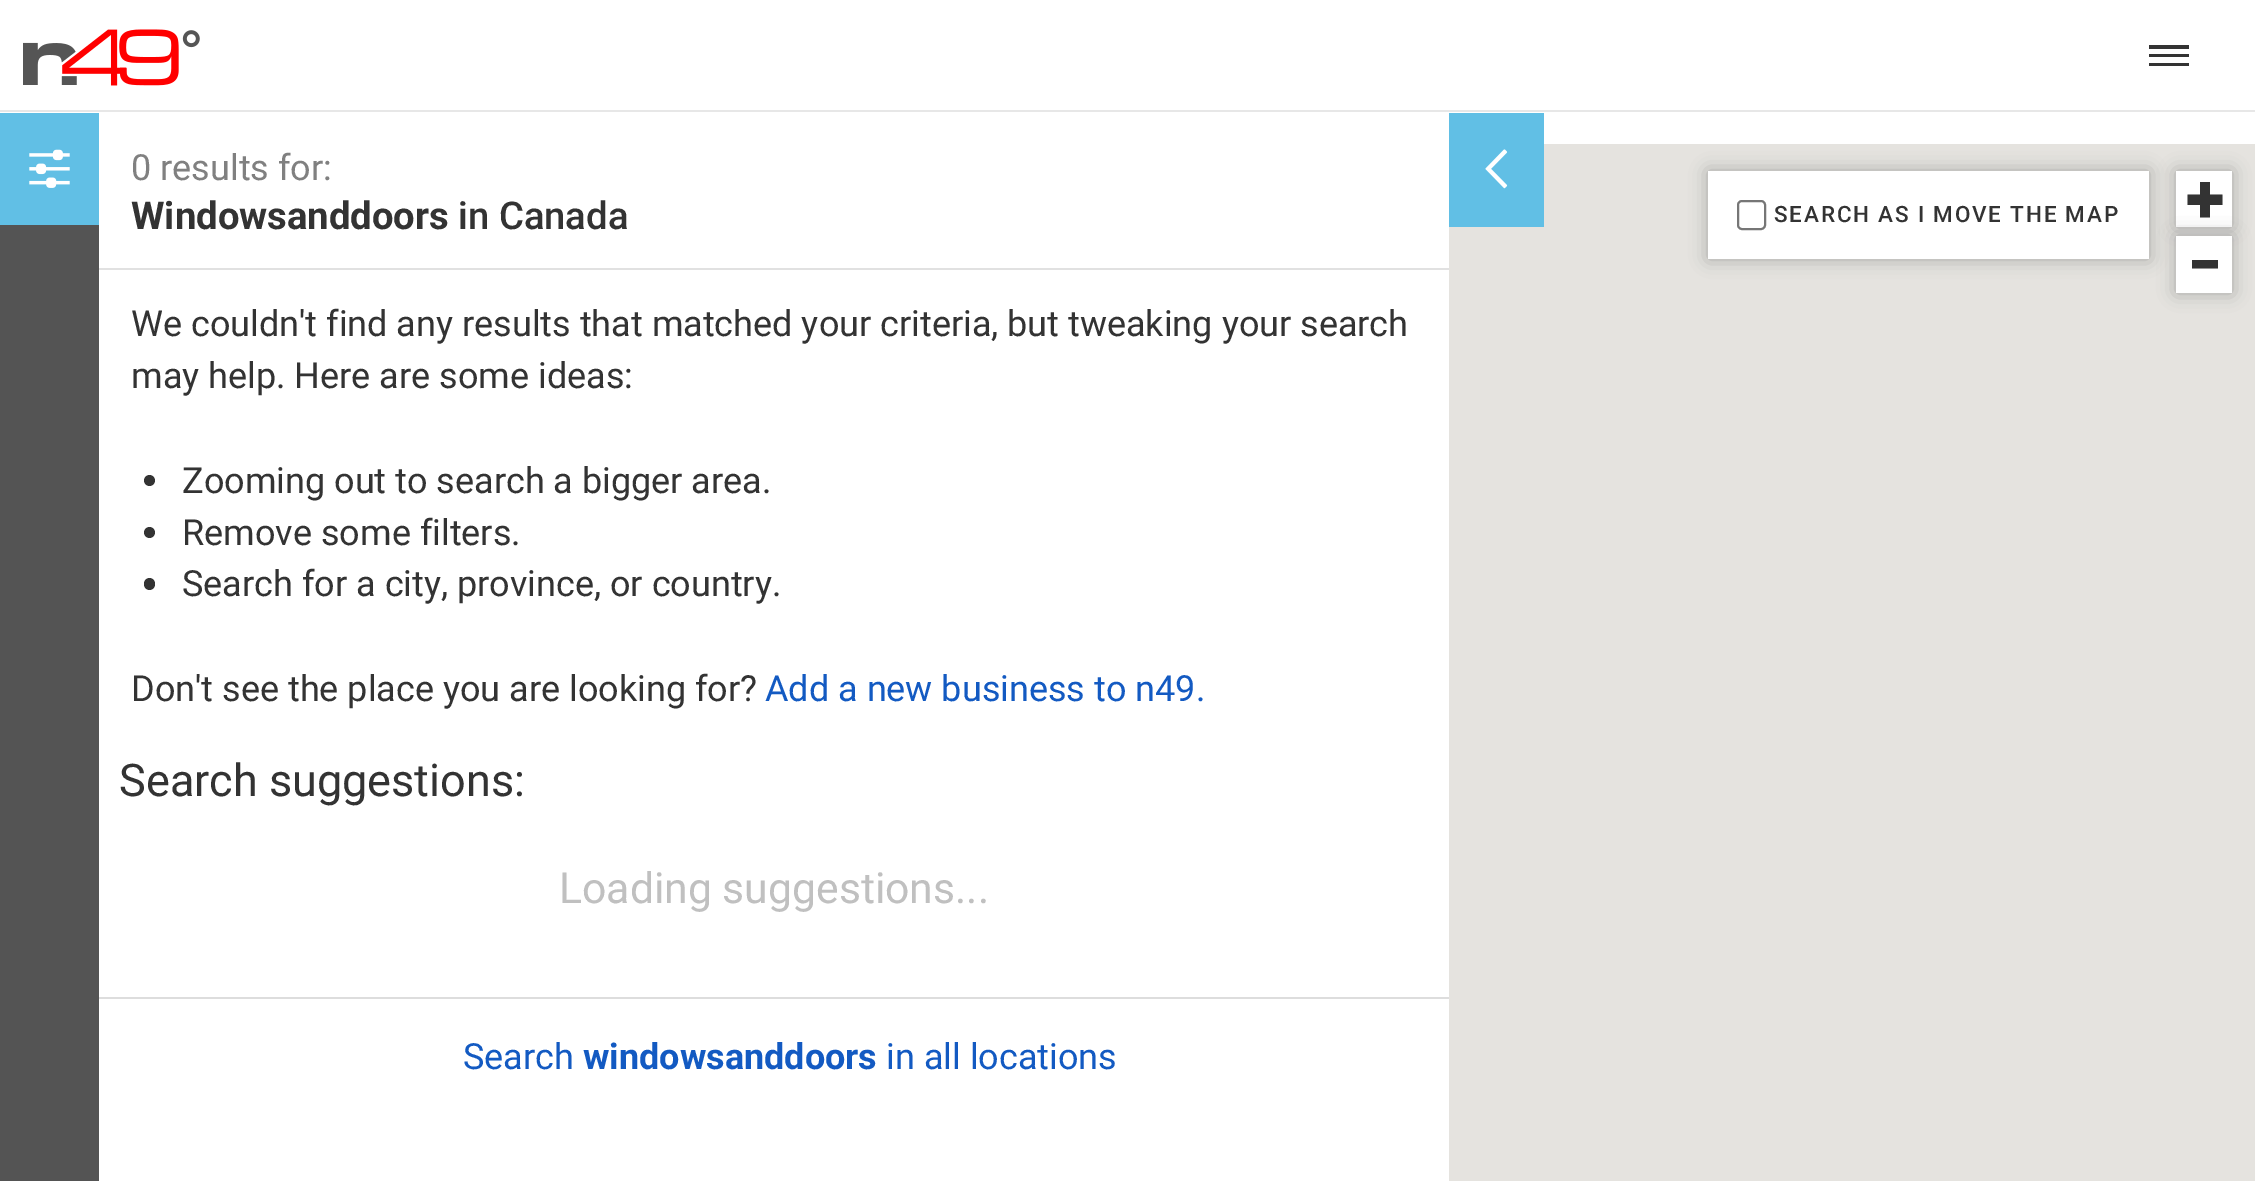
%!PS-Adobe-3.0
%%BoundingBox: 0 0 2255 1181
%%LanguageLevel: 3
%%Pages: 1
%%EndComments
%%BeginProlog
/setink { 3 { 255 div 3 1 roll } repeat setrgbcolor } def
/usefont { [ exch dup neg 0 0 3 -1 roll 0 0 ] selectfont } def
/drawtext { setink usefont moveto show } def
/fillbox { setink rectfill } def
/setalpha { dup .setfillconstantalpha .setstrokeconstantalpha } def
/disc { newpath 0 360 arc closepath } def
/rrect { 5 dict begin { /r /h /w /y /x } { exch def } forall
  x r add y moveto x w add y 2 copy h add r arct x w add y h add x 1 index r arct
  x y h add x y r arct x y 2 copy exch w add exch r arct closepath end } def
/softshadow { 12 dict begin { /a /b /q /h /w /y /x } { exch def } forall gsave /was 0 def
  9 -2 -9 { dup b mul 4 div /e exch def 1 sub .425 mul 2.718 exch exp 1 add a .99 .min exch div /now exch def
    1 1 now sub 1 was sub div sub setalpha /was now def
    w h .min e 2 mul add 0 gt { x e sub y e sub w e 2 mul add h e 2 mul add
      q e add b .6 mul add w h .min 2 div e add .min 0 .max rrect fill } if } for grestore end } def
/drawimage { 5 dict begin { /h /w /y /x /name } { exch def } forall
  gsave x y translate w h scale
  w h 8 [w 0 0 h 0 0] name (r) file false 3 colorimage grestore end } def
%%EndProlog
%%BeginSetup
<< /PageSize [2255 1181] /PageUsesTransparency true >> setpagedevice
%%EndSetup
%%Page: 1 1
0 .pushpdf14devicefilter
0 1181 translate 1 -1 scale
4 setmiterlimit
0 0 2255 1181 255 255 255 fillbox
0 110 2255 2 231 231 231 fillbox
(assets/img1.rgb) 23 29 177 57 drawimage
51 51 51 setink
2149 45 moveto 2149 49 lineto 2189 49 lineto 2189 45 lineto closepath 2149 57 moveto 2189 57 lineto 2189 54 lineto 2149 54 lineto closepath 2149 66 moveto 2189 66 lineto 2189 63 lineto 2149 63 lineto closepath fill
0 225 99 956 84 84 84 fillbox
0 113 99 112 97 191 229 fillbox
(assets/img2.rgb) 29 149 41 39 drawimage
99 268 1350 2 225 225 225 fillbox
(0 results for:) 131 180 /Roboto-Regular 36 128 128 128 drawtext
(Windowsanddoors) 131 229 /Roboto-Bold 38.25 51 51 51 drawtext
(in Canada) 458 229 /Roboto-Medium 38.25 51 51 51 drawtext
(We couldn't find any results that matched your criteria, but tweaking your search) 131 336 /Roboto-Regular 36 51 51 51 drawtext
(may help. Here are some ideas:) 131 388 /Roboto-Regular 36 51 51 51 drawtext
149.5 480.5 5.5 disc fill
(Zooming out to search a bigger area.) 182 493 /Roboto-Regular 36 51 51 51 drawtext
149.5 532.5 5.5 disc fill
(Remove some filters.) 182 545 /Roboto-Regular 36 51 51 51 drawtext
144 578 11 12 5.5 rrect fill
(Search for a city, province, or country.) 182 596 /Roboto-Regular 36 51 51 51 drawtext
(Don't see the place you are looking for?) 131 701 /Roboto-Regular 36 51 51 51 drawtext
(Add a new business to n49.) 765 701 /Roboto-Regular 36 19 90 194 drawtext
(Search suggestions:) 119 796 /Roboto-Regular 45 51 51 51 drawtext
(Loading suggestions...) 559 903 /Roboto-Regular 42.75 192 192 192 drawtext
99 997 1350 2 221 221 221 fillbox
(Search) 463 1069 /Roboto-Regular 36 19 90 194 drawtext
(windowsanddoors) 583 1069 /Roboto-Bold 36 19 90 194 drawtext
(in all locations) 886 1069 /Roboto-Regular 36 19 90 194 drawtext
1449 144 806 1037 229 227 223 fillbox
1449 113 95 114 97 191 229 fillbox
(assets/img3.rgb) 1485 149 23 40 drawimage
163 163 163 setink
1708 171 441 88 0 9 1 softshadow
1708 171 441 88 255 255 255 fillbox
163 163 163 setink
2176 171 56 56 0 9 1 softshadow
2176 171 56 56 255 255 255 fillbox
163 163 163 setink
2176 236 56 57 0 9 1 softshadow
51 51 51 setink
2222.5 205 moveto 2210 205 lineto 2210 217.5 lineto 2200 217.5 lineto 2200 205 lineto 2187.5 205 lineto 2187.5 194.5 lineto 2200 194.5 lineto 2200 182 lineto 2210 182 lineto 2210 194.5 lineto 2222.5 194.5 lineto closepath fill
2176 236 56 57 255 255 255 fillbox
51 51 51 setink
2200 268.5 moveto 2192 268.5 lineto 2192 260 lineto 2218 260 lineto 2218 268.5 lineto closepath fill
118 118 118 setink
2 setlinewidth
1738 201 27 28 4 rrect stroke
/Roboto-Medium 22.5 usefont
51 51 51 setink
1774 222 moveto 1.8 0 (SEARCH AS I MOVE THE MAP) ashow
.poppdf14devicefilter showpage
%%EOF
